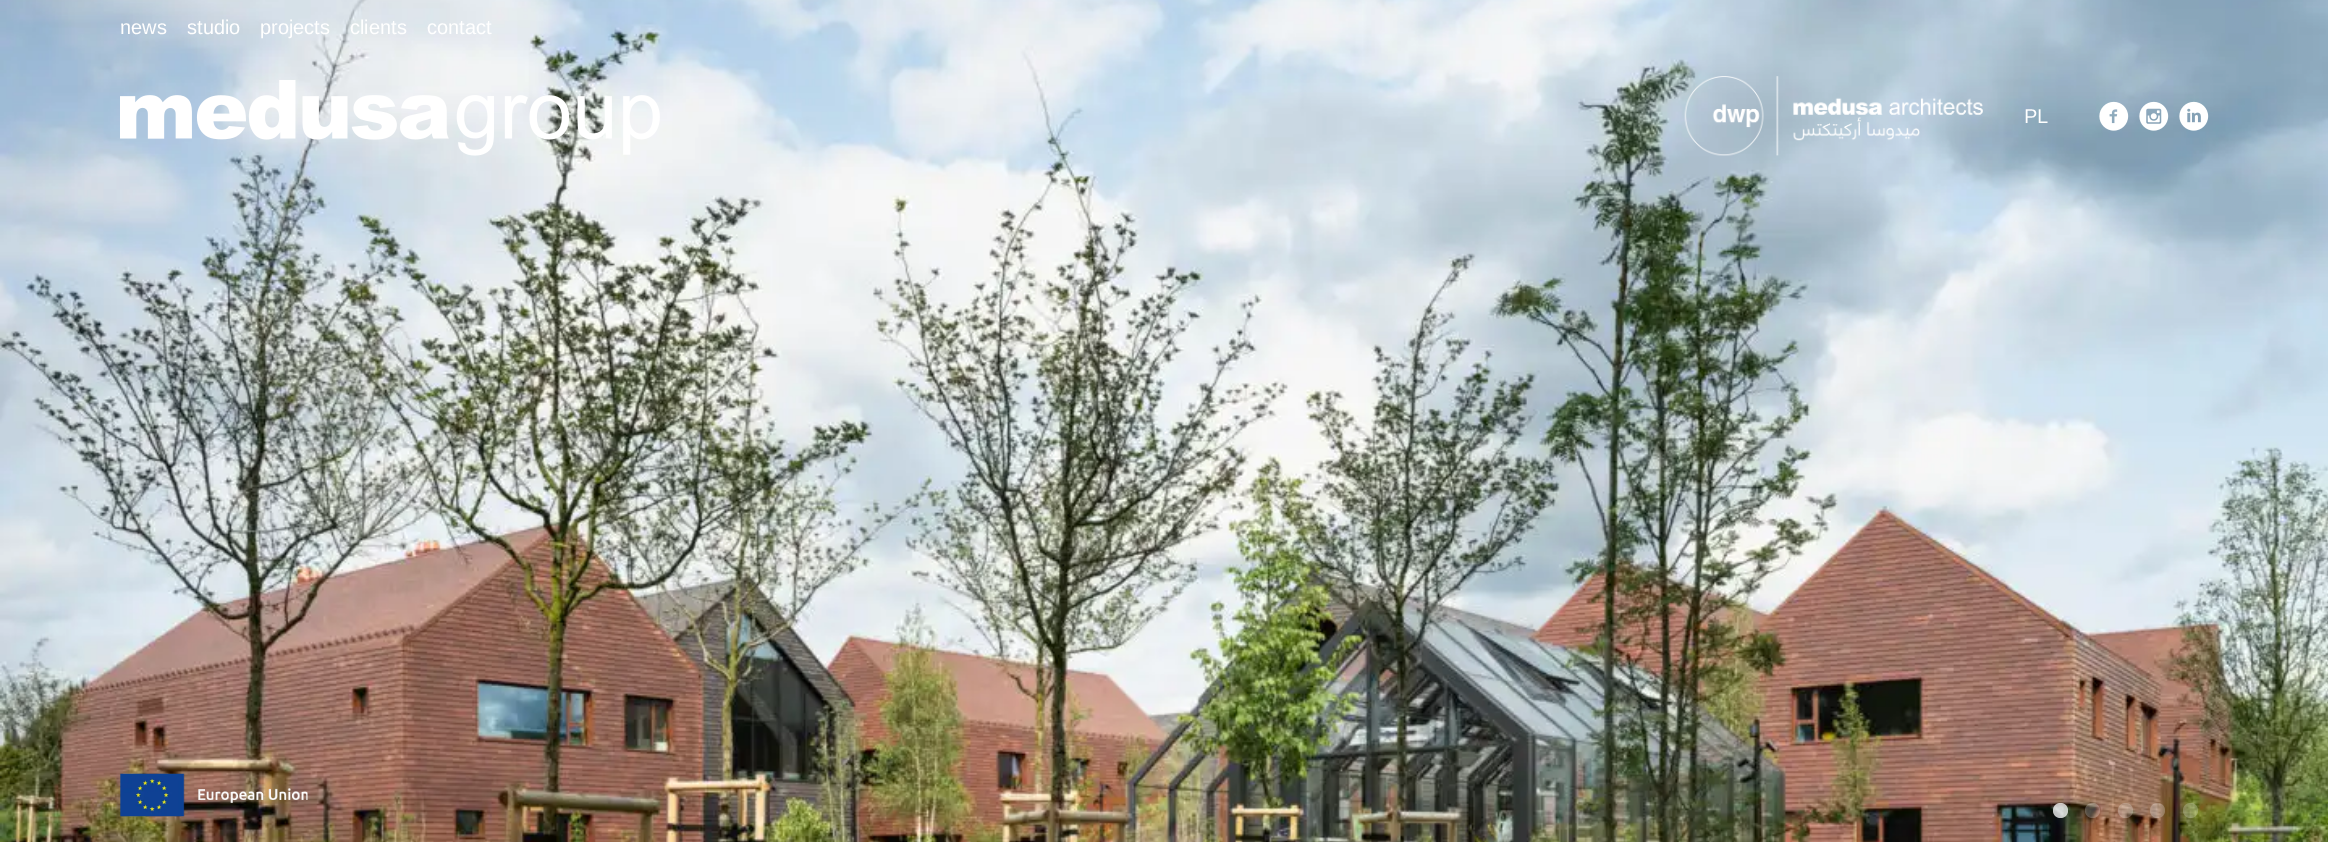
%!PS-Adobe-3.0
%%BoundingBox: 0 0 2328 842
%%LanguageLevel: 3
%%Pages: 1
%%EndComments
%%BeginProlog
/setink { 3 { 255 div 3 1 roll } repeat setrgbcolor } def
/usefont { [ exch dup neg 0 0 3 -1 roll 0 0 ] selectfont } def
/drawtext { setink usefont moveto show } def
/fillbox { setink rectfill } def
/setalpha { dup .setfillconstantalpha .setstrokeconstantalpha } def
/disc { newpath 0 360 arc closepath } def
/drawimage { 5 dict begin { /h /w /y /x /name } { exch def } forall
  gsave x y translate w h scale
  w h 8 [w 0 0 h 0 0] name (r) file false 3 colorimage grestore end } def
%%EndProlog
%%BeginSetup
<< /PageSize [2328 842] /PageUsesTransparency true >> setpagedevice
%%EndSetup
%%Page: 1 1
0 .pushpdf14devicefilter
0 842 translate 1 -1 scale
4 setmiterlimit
0 0 2328 842 255 255 255 fillbox
(assets/img1.rgb) 0 0 2328 842 drawimage
0.75 setalpha
2060.5 810.5 7.5 disc fill
0.25 setalpha
2092.5 810.5 7.5 disc fill
2125.5 810.5 7.5 disc fill
2157.5 810.5 7.5 disc fill
2190.5 810.5 7.5 disc fill
1 setalpha
(news) 120 34 /LiberationSans-Regular 20 255 255 255 drawtext
(studio) 187 34 /LiberationSans-Regular 20 255 255 255 drawtext
(projects) 260 34 /LiberationSans-Regular 20 255 255 255 drawtext
(clients) 350 34 /LiberationSans-Regular 20 255 255 255 drawtext
(contact) 427 34 /LiberationSans-Regular 20 255 255 255 drawtext
(assets/img2.rgb) 120 80 540 76 drawimage
(assets/img3.rgb) 1684 76 299 80 drawimage
(PL) 2024 123 /LiberationSans-Regular 20 255 255 255 drawtext
(assets/img4.rgb) 2099 101 30 30 drawimage
(assets/img5.rgb) 2139 101 30 30 drawimage
(assets/img6.rgb) 2179 101 30 30 drawimage
(assets/img7.rgb) 120 773 188 44 drawimage
.poppdf14devicefilter showpage
%%EOF
